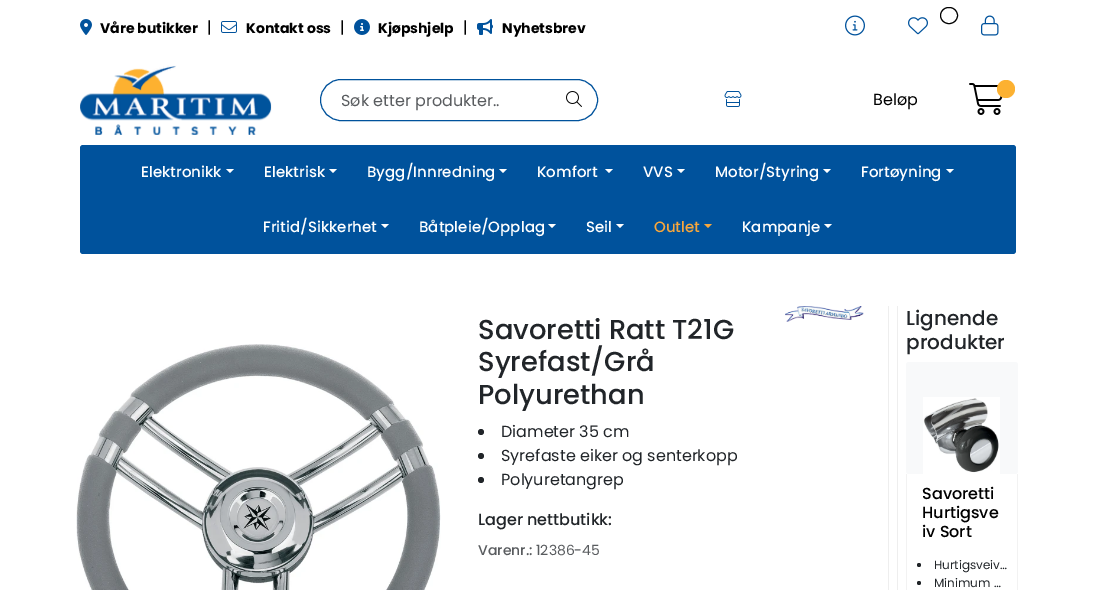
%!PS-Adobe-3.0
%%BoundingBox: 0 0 1095 590
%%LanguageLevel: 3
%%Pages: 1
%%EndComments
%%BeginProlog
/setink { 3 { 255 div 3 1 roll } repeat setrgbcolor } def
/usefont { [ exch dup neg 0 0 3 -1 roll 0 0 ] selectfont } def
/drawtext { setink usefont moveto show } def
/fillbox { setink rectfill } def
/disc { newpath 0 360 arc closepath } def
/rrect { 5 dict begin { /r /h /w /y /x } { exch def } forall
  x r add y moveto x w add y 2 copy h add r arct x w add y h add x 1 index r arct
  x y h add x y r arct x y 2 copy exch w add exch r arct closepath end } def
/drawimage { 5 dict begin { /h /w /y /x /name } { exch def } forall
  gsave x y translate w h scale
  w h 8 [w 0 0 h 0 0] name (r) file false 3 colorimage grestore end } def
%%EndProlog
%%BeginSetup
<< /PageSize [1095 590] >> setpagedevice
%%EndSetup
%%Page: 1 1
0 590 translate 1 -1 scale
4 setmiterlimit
0 0 1095 590 255 255 255 fillbox
(assets/img1.rgb) 80 19 12 16 drawimage
(Våre butikker) 100 33 /Poppins-Bold 14 0 0 0 drawtext
(|) 207 33 /Poppins-Regular 16 0 0 0 drawtext
(assets/img2.rgb) 221 21 16 12 drawimage
(Kontakt oss) 246 33 /Poppins-Bold 14 0 0 0 drawtext
(|) 340 33 /Poppins-Regular 16 0 0 0 drawtext
(assets/img3.rgb) 354 19 16 16 drawimage
(Kjøpshjelp) 378 33 /Poppins-Bold 14 0 0 0 drawtext
(|) 463 33 /Poppins-Regular 16 0 0 0 drawtext
(assets/img4.rgb) 477 19 16 16 drawimage
(Nyhetsbrev) 502 33 /Poppins-Bold 14 0 0 0 drawtext
(assets/img5.rgb) 845 15 20 21 drawimage
(assets/img6.rgb) 908 17 20 18 drawimage
940.5 7.5 17 16 8 rrect stroke
(assets/img7.rgb) 981 15 18 21 drawimage
(assets/img8.rgb) 80 65 192 70 drawimage
0 82 156 setink
320.5 79.5 277 41 20.5 rrect stroke
(Søk etter produkter..) 341 106 /Poppins-Regular 16 89 92 95 drawtext
(assets/img9.rgb) 566 91 16 16 drawimage
(assets/img10.rgb) 724 91 18 16 drawimage
(Beløp) 873 105 /Poppins-Regular 16 0 0 0 drawtext
(assets/img11.rgb) 969 83 34 32 drawimage
252 177 49 setink
1006 89 9 disc fill
0 82 156 setink
80 145 936 109 3 rrect fill
(Elektronikk) 141 177 /Poppins-Medium 15 255 255 255 drawtext
226 169 moveto 234 169 lineto 230 173 lineto closepath fill
(Elektrisk) 264 177 /Poppins-Medium 15 255 255 255 drawtext
329 169 moveto 337 169 lineto 333 173 lineto closepath fill
(Bygg/Innredning) 367 177 /Poppins-Medium 15 255 255 255 drawtext
499 169 moveto 507 169 lineto 503 173 lineto closepath fill
(Komfort) 537 177 /Poppins-Medium 15 255 255 255 drawtext
605 169 moveto 613 169 lineto 609 173 lineto closepath fill
(VVS) 643 177 /Poppins-Medium 15 255 255 255 drawtext
677 169 moveto 685 169 lineto 681 173 lineto closepath fill
(Motor/Styring) 715 177 /Poppins-Medium 15 255 255 255 drawtext
823 169 moveto 831 169 lineto 827 173 lineto closepath fill
(Fortøyning) 861 177 /Poppins-Medium 15 255 255 255 drawtext
946 169 moveto 954 169 lineto 950 173 lineto closepath fill
(Fritid/Sikkerhet) 263 232 /Poppins-Medium 15 255 255 255 drawtext
381 224 moveto 389 224 lineto 385 228 lineto closepath fill
(Båtpleie/Opplag) 419 232 /Poppins-Medium 15 255 255 255 drawtext
548 224 moveto 556 224 lineto 552 228 lineto closepath fill
(Seil) 586 232 /Poppins-Medium 15 255 255 255 drawtext
616 224 moveto 624 224 lineto 620 228 lineto closepath fill
(Outlet) 654 232 /Poppins-Medium 15 248 167 60 drawtext
704 224 moveto 712 224 lineto 708 228 lineto closepath fill
(Kampanje) 742 232 /Poppins-Medium 15 255 255 255 drawtext
824 224 moveto 832 224 lineto 828 228 lineto closepath fill
(assets/img12.rgb) 76 344 365 246 drawimage
(assets/img13.rgb) 785 306 79 16 drawimage
(Savoretti Ratt T21G) 478 339 /Poppins-Medium 27.4 33 37 41 drawtext
(Syrefast/Grå) 478 371 /Poppins-Medium 27.4 33 37 41 drawtext
(Polyurethan) 478 404 /Poppins-Medium 27.4 33 37 41 drawtext
481 432 3 disc fill
(Diameter 35 cm) 501 437 /Poppins-Regular 16 33 37 41 drawtext
481 456 3 disc fill
(Syrefaste eiker og senterkopp) 501 461 /Poppins-Regular 16 33 37 41 drawtext
481 480 3 disc fill
(Polyuretangrep) 501 485 /Poppins-Regular 16 33 37 41 drawtext
(Lager nettbutikk:) 478 525 /Poppins-Medium 16 33 37 41 drawtext
(Varenr.:) 478 555 /Poppins-Medium 14 89 92 95 drawtext
(12386-45) 536 555 /Poppins-Regular 14 89 92 95 drawtext
888 306 1 284 238 238 238 fillbox
897 306 1 284 238 238 238 fillbox
(Lignende) 906 325 /Poppins-Medium 20 33 37 41 drawtext
(produkter) 906 349 /Poppins-Medium 20 33 37 41 drawtext
248 249 250 setink
906 362 112 112 3 rrect fill
(assets/img14.rgb) 923 397 77 77 drawimage
242 242 242 setink
1018 474 moveto 1018 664 lineto 1017 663 lineto 1017 474 lineto closepath fill
906 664 moveto 906 474 lineto 907 474 lineto 907 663 lineto closepath fill
(Savoretti) 922 499 /Poppins-Medium 16 0 0 0 drawtext
(Hurtigsve) 922 518 /Poppins-Medium 16 0 0 0 drawtext
(iv Sort) 922 537 /Poppins-Medium 16 0 0 0 drawtext
33 37 41 setink
919 565 2 disc fill
(Hurtigsveiv…) 934 569 /Poppins-Regular 12 33 37 41 drawtext
919 583 2 disc fill
(Minimum …) 934 587 /Poppins-Regular 12 33 37 41 drawtext
showpage
%%EOF
